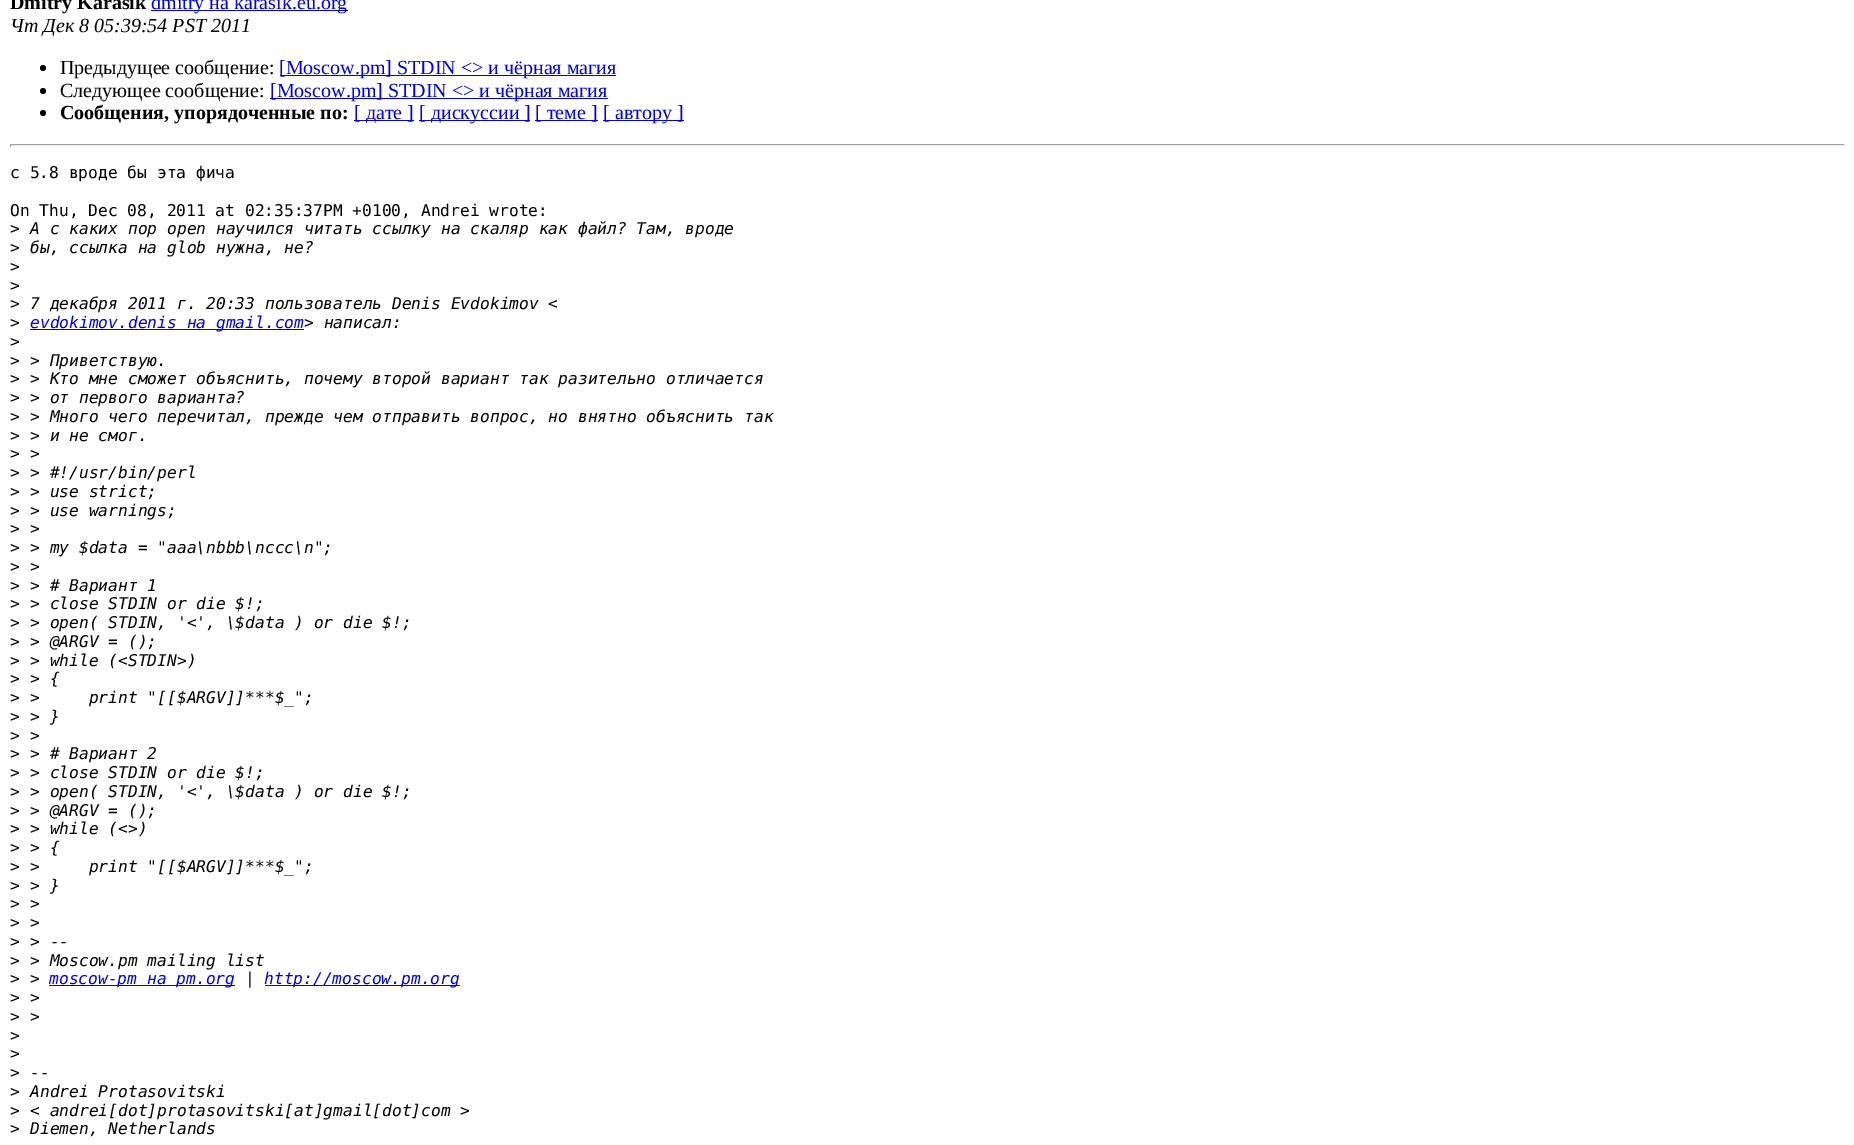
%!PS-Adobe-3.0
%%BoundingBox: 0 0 1854 1145
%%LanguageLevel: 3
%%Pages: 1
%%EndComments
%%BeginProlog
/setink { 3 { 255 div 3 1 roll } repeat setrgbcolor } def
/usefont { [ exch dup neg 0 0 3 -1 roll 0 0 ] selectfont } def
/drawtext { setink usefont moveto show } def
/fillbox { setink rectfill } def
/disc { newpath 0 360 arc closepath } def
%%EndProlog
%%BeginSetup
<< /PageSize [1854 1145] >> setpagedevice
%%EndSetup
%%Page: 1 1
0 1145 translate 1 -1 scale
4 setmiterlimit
0 0 1854 1145 255 255 255 fillbox
(Dmitry Karasik) 10 9 /LiberationSerif-Bold 20 0 0 0 drawtext
151 10 197 1 0 0 238 fillbox
(dmitry на karasik.eu.org) 151 9 /LiberationSerif-Regular 20 0 0 238 drawtext
(Чт Дек 8 05:39:54 PST 2011) 10 32 /LiberationSerif-Italic 20 0 0 0 drawtext
43 68 3 disc fill
(Предыдущее сообщение:) 60 74 /LiberationSerif-Regular 20 0 0 0 drawtext
280 75 336 1 0 0 238 fillbox
([Moscow.pm] STDIN <> и чёрная магия) 279 74 /LiberationSerif-Regular 20 0 0 238 drawtext
0 0 0 setink
43 91 3 disc fill
(Следующее сообщение:) 60 97 /LiberationSerif-Regular 20 0 0 0 drawtext
270 98 338 1 0 0 238 fillbox
([Moscow.pm] STDIN <> и чёрная магия) 270 97 /LiberationSerif-Regular 20 0 0 238 drawtext
0 0 0 setink
43 113 3 disc fill
(Сообщения, упорядоченные по:) 60 119 /LiberationSerif-Bold 20 0 0 0 drawtext
354 120 60 1 0 0 238 fillbox
([ дате ]) 354 119 /LiberationSerif-Regular 20 0 0 238 drawtext
419 120 111 1 0 0 238 fillbox
([ дискуссии ]) 419 119 /LiberationSerif-Regular 20 0 0 238 drawtext
535 120 63 1 0 0 238 fillbox
([ теме ]) 535 119 /LiberationSerif-Regular 20 0 0 238 drawtext
603 120 81 1 0 0 238 fillbox
([ автору ]) 603 119 /LiberationSerif-Regular 20 0 0 238 drawtext
10 144 1835 1 159 159 159 fillbox
1844 144 1 3 238 238 238 fillbox
10 145 1835 1 238 238 238 fillbox
10 144 1 3 159 159 159 fillbox
(с 5.8 вроде бы эта фича) 10 178 /DejaVuSansMono-Regular 16.25 0 0 0 drawtext
(On Thu, Dec 08, 2011 at 02:35:37PM +0100, Andrei wrote:) 10 216 /DejaVuSansMono-Regular 16.25 0 0 0 drawtext
(>) 10 234 /DejaVuSansMono-Regular 16.25 0 0 0 drawtext
(А с каких пор open научился читать ссылку на скаляр как файл? Там, вроде) 30 234 /DejaVuSansMono-Italic 16.25 0 0 0 drawtext
(>) 10 253 /DejaVuSansMono-Regular 16.25 0 0 0 drawtext
(бы, ссылка на glob нужна, не?) 30 253 /DejaVuSansMono-Italic 16.25 0 0 0 drawtext
(>) 10 272 /DejaVuSansMono-Regular 16.25 0 0 0 drawtext
(>) 10 291 /DejaVuSansMono-Regular 16.25 0 0 0 drawtext
(>) 10 309 /DejaVuSansMono-Regular 16.25 0 0 0 drawtext
(7 декабря 2011 г. 20:33 пользователь Denis Evdokimov <) 30 309 /DejaVuSansMono-Italic 16.25 0 0 0 drawtext
(>) 10 328 /DejaVuSansMono-Regular 16.25 0 0 0 drawtext
30 329 274 1 0 0 238 fillbox
(evdokimov.denis на gmail.com) 30 328 /DejaVuSansMono-Italic 16.25 0 0 238 drawtext
(> написал:) 304 328 /DejaVuSansMono-Italic 16.25 0 0 0 drawtext
(>) 10 347 /DejaVuSansMono-Regular 16.25 0 0 0 drawtext
(>) 10 366 /DejaVuSansMono-Regular 16.25 0 0 0 drawtext
(> Приветствую.) 30 366 /DejaVuSansMono-Italic 16.25 0 0 0 drawtext
(>) 10 384 /DejaVuSansMono-Regular 16.25 0 0 0 drawtext
(> Кто мне сможет объяснить, почему второй вариант так разительно отличается) 30 384 /DejaVuSansMono-Italic 16.25 0 0 0 drawtext
(>) 10 403 /DejaVuSansMono-Regular 16.25 0 0 0 drawtext
(> от первого варианта?) 30 403 /DejaVuSansMono-Italic 16.25 0 0 0 drawtext
(>) 10 422 /DejaVuSansMono-Regular 16.25 0 0 0 drawtext
(> Много чего перечитал, прежде чем отправить вопрос, но внятно объяснить так) 30 422 /DejaVuSansMono-Italic 16.25 0 0 0 drawtext
(>) 10 441 /DejaVuSansMono-Regular 16.25 0 0 0 drawtext
(> и не смог.) 30 441 /DejaVuSansMono-Italic 16.25 0 0 0 drawtext
(>) 10 459 /DejaVuSansMono-Regular 16.25 0 0 0 drawtext
(>) 30 459 /DejaVuSansMono-Italic 16.25 0 0 0 drawtext
(>) 10 478 /DejaVuSansMono-Regular 16.25 0 0 0 drawtext
(> #!/usr/bin/perl) 30 478 /DejaVuSansMono-Italic 16.25 0 0 0 drawtext
(>) 10 497 /DejaVuSansMono-Regular 16.25 0 0 0 drawtext
(> use strict;) 30 497 /DejaVuSansMono-Italic 16.25 0 0 0 drawtext
(>) 10 516 /DejaVuSansMono-Regular 16.25 0 0 0 drawtext
(> use warnings;) 30 516 /DejaVuSansMono-Italic 16.25 0 0 0 drawtext
(>) 10 534 /DejaVuSansMono-Regular 16.25 0 0 0 drawtext
(>) 30 534 /DejaVuSansMono-Italic 16.25 0 0 0 drawtext
(>) 10 553 /DejaVuSansMono-Regular 16.25 0 0 0 drawtext
(> my $data = "aaa\\nbbb\\nccc\\n";) 30 553 /DejaVuSansMono-Italic 16.25 0 0 0 drawtext
(>) 10 572 /DejaVuSansMono-Regular 16.25 0 0 0 drawtext
(>) 30 572 /DejaVuSansMono-Italic 16.25 0 0 0 drawtext
(>) 10 591 /DejaVuSansMono-Regular 16.25 0 0 0 drawtext
(> # Вариант 1) 30 591 /DejaVuSansMono-Italic 16.25 0 0 0 drawtext
(>) 10 609 /DejaVuSansMono-Regular 16.25 0 0 0 drawtext
(> close STDIN or die $!;) 30 609 /DejaVuSansMono-Italic 16.25 0 0 0 drawtext
(>) 10 628 /DejaVuSansMono-Regular 16.25 0 0 0 drawtext
(> open\( STDIN, '<', \\$data \) or die $!;) 30 628 /DejaVuSansMono-Italic 16.25 0 0 0 drawtext
(>) 10 647 /DejaVuSansMono-Regular 16.25 0 0 0 drawtext
(> @ARGV = \(\);) 30 647 /DejaVuSansMono-Italic 16.25 0 0 0 drawtext
(>) 10 666 /DejaVuSansMono-Regular 16.25 0 0 0 drawtext
(> while \(<STDIN>\)) 30 666 /DejaVuSansMono-Italic 16.25 0 0 0 drawtext
(>) 10 684 /DejaVuSansMono-Regular 16.25 0 0 0 drawtext
(> {) 30 684 /DejaVuSansMono-Italic 16.25 0 0 0 drawtext
(>) 10 703 /DejaVuSansMono-Regular 16.25 0 0 0 drawtext
(>     print "[[$ARGV]]***$_";) 30 703 /DejaVuSansMono-Italic 16.25 0 0 0 drawtext
(>) 10 722 /DejaVuSansMono-Regular 16.25 0 0 0 drawtext
(> }) 30 722 /DejaVuSansMono-Italic 16.25 0 0 0 drawtext
(>) 10 741 /DejaVuSansMono-Regular 16.25 0 0 0 drawtext
(>) 30 741 /DejaVuSansMono-Italic 16.25 0 0 0 drawtext
(>) 10 759 /DejaVuSansMono-Regular 16.25 0 0 0 drawtext
(> # Вариант 2) 30 759 /DejaVuSansMono-Italic 16.25 0 0 0 drawtext
(>) 10 778 /DejaVuSansMono-Regular 16.25 0 0 0 drawtext
(> close STDIN or die $!;) 30 778 /DejaVuSansMono-Italic 16.25 0 0 0 drawtext
(>) 10 797 /DejaVuSansMono-Regular 16.25 0 0 0 drawtext
(> open\( STDIN, '<', \\$data \) or die $!;) 30 797 /DejaVuSansMono-Italic 16.25 0 0 0 drawtext
(>) 10 816 /DejaVuSansMono-Regular 16.25 0 0 0 drawtext
(> @ARGV = \(\);) 30 816 /DejaVuSansMono-Italic 16.25 0 0 0 drawtext
(>) 10 834 /DejaVuSansMono-Regular 16.25 0 0 0 drawtext
(> while \(<>\)) 30 834 /DejaVuSansMono-Italic 16.25 0 0 0 drawtext
(>) 10 853 /DejaVuSansMono-Regular 16.25 0 0 0 drawtext
(> {) 30 853 /DejaVuSansMono-Italic 16.25 0 0 0 drawtext
(>) 10 872 /DejaVuSansMono-Regular 16.25 0 0 0 drawtext
(>     print "[[$ARGV]]***$_";) 30 872 /DejaVuSansMono-Italic 16.25 0 0 0 drawtext
(>) 10 891 /DejaVuSansMono-Regular 16.25 0 0 0 drawtext
(> }) 30 891 /DejaVuSansMono-Italic 16.25 0 0 0 drawtext
(>) 10 909 /DejaVuSansMono-Regular 16.25 0 0 0 drawtext
(>) 30 909 /DejaVuSansMono-Italic 16.25 0 0 0 drawtext
(>) 10 928 /DejaVuSansMono-Regular 16.25 0 0 0 drawtext
(>) 30 928 /DejaVuSansMono-Italic 16.25 0 0 0 drawtext
(>) 10 947 /DejaVuSansMono-Regular 16.25 0 0 0 drawtext
(> --) 30 947 /DejaVuSansMono-Italic 16.25 0 0 0 drawtext
(>) 10 966 /DejaVuSansMono-Regular 16.25 0 0 0 drawtext
(> Moscow.pm mailing list) 30 966 /DejaVuSansMono-Italic 16.25 0 0 0 drawtext
(>) 10 984 /DejaVuSansMono-Regular 16.25 0 0 0 drawtext
(>) 30 984 /DejaVuSansMono-Italic 16.25 0 0 0 drawtext
49 985 186 1 0 0 238 fillbox
(moscow-pm на pm.org) 49 984 /DejaVuSansMono-Italic 16.25 0 0 238 drawtext
(|) 245 984 /DejaVuSansMono-Italic 16.25 0 0 0 drawtext
265 985 195 1 0 0 238 fillbox
(http://moscow.pm.org) 264 984 /DejaVuSansMono-Italic 16.25 0 0 238 drawtext
(>) 10 1003 /DejaVuSansMono-Regular 16.25 0 0 0 drawtext
(>) 30 1003 /DejaVuSansMono-Italic 16.25 0 0 0 drawtext
(>) 10 1022 /DejaVuSansMono-Regular 16.25 0 0 0 drawtext
(>) 30 1022 /DejaVuSansMono-Italic 16.25 0 0 0 drawtext
(>) 10 1041 /DejaVuSansMono-Regular 16.25 0 0 0 drawtext
(>) 10 1059 /DejaVuSansMono-Regular 16.25 0 0 0 drawtext
(>) 10 1078 /DejaVuSansMono-Regular 16.25 0 0 0 drawtext
(--) 30 1078 /DejaVuSansMono-Italic 16.25 0 0 0 drawtext
(>) 10 1097 /DejaVuSansMono-Regular 16.25 0 0 0 drawtext
(Andrei Protasovitski) 30 1097 /DejaVuSansMono-Italic 16.25 0 0 0 drawtext
(>) 10 1116 /DejaVuSansMono-Regular 16.25 0 0 0 drawtext
(< andrei[dot]protasovitski[at]gmail[dot]com >) 30 1116 /DejaVuSansMono-Italic 16.25 0 0 0 drawtext
(>) 10 1134 /DejaVuSansMono-Regular 16.25 0 0 0 drawtext
(Diemen, Netherlands) 30 1134 /DejaVuSansMono-Italic 16.25 0 0 0 drawtext
showpage
%%EOF
